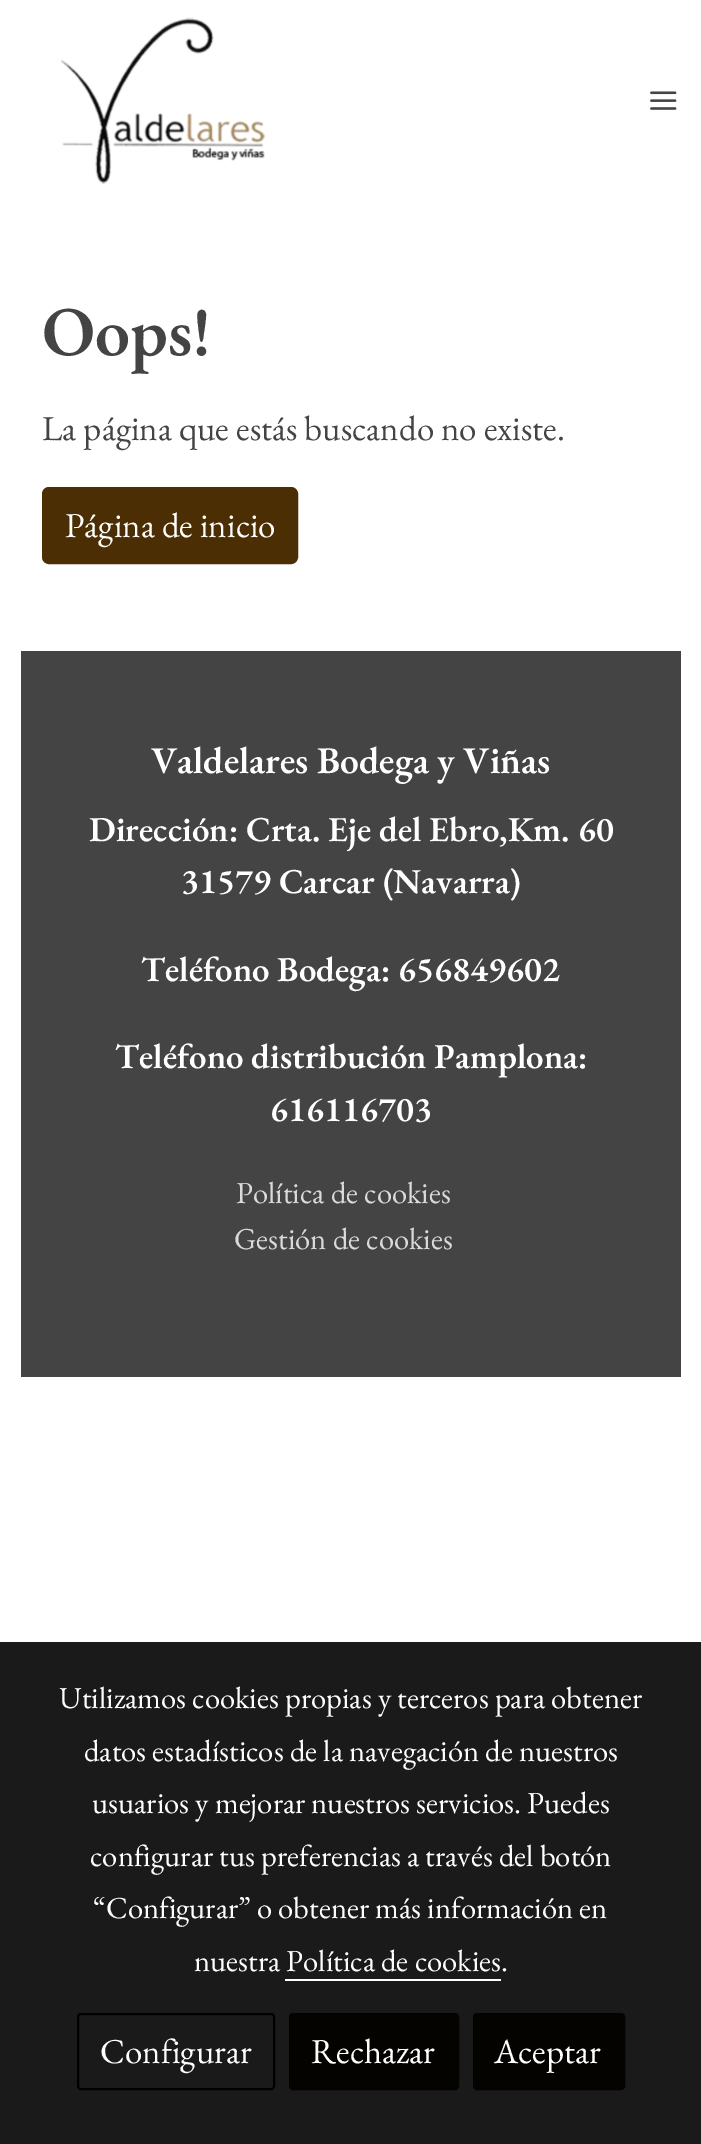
%!PS-Adobe-3.0
%%BoundingBox: 0 0 701 2144
%%LanguageLevel: 3
%%Pages: 1
%%EndComments
%%BeginProlog
/setink { 3 { 255 div 3 1 roll } repeat setrgbcolor } def
/usefont { [ exch dup neg 0 0 3 -1 roll 0 0 ] selectfont } def
/drawtext { setink usefont moveto show } def
/fillbox { setink rectfill } def
/rrect { 5 dict begin { /r /h /w /y /x } { exch def } forall
  x r add y moveto x w add y 2 copy h add r arct x w add y h add x 1 index r arct
  x y h add x y r arct x y 2 copy exch w add exch r arct closepath end } def
/drawimage { 5 dict begin { /h /w /y /x /name } { exch def } forall
  gsave x y translate w h scale
  w h 8 [w 0 0 h 0 0] name (r) file false 3 colorimage grestore end } def
%%EndProlog
%%BeginSetup
<< /PageSize [701 2144] >> setpagedevice
%%EndSetup
%%Page: 1 1
0 2144 translate 1 -1 scale
4 setmiterlimit
0 0 701 2144 255 255 255 fillbox
(assets/img1.rgb) 60 17 206 167 drawimage
(assets/img2.rgb) 650 91 27 19 drawimage
(Oops!) 42 355 /EBGaramond-SemiBold 70 68 68 68 drawtext
(La página que estás buscando no existe.) 42 440 /EBGaramond-Regular 35 68 68 68 drawtext
76 46 5 setink
43 488 254 75 6 rrect gsave fill grestore
2 setlinewidth
stroke
(Página de inicio) 65 537 /EBGaramond-Regular 35 255 255 255 drawtext
21 651 660 726 68 68 68 fillbox
(Valdelares Bodega y Viñas) 151 773 /EBGaramond-SemiBold 37.75 255 255 255 drawtext
(Dirección: Crta. Eje del Ebro,Km. 60) 89 841 /EBGaramond-SemiBold 35 255 255 255 drawtext
(31579 Carcar \(Navarra\)) 181 893 /EBGaramond-SemiBold 35 255 255 255 drawtext
(Teléfono Bodega: 656849602) 141 981 /EBGaramond-SemiBold 35 255 255 255 drawtext
(Teléfono distribución Pamplona:) 115 1068 /EBGaramond-SemiBold 35 255 255 255 drawtext
(616116703) 270 1121 /EBGaramond-SemiBold 35 255 255 255 drawtext
(Política de cookies) 236 1203 /EBGaramond-Regular 30.6 218 218 218 drawtext
(Gestión de cookies) 234 1249 /EBGaramond-Regular 30.6 218 218 218 drawtext
0 1642 701 502 26 26 26 fillbox
(Utilizamos cookies propias y terceros para obtener) 59 1708 /EBGaramond-Regular 30.6 255 255 255 drawtext
(datos estadísticos de la navegación de nuestros) 84 1761 /EBGaramond-Regular 30.6 255 255 255 drawtext
(usuarios y mejorar nuestros servicios. Puedes) 92 1813 /EBGaramond-Regular 30.6 255 255 255 drawtext
(configurar tus preferencias a través del botón) 90 1866 /EBGaramond-Regular 30.6 255 255 255 drawtext
(“Configurar” o obtener más información en) 93 1918 /EBGaramond-Regular 30.6 255 255 255 drawtext
(nuestra Política de cookies.) 194 1971 /EBGaramond-Regular 30.6 255 255 255 drawtext
285 1979 216 2 255 255 255 fillbox
0 0 0 setink
78 2014 196 75 3 rrect stroke
(Configurar) 100 2063 /EBGaramond-Regular 35 255 255 255 drawtext
4 3 0 setink
290 2014 168 75 3 rrect gsave fill grestore
stroke
(Rechazar) 311 2063 /EBGaramond-Regular 35 255 255 255 drawtext
4 3 0 setink
474 2014 150 75 3 rrect gsave fill grestore
stroke
(Aceptar) 494 2063 /EBGaramond-Regular 35 255 255 255 drawtext
showpage
%%EOF
